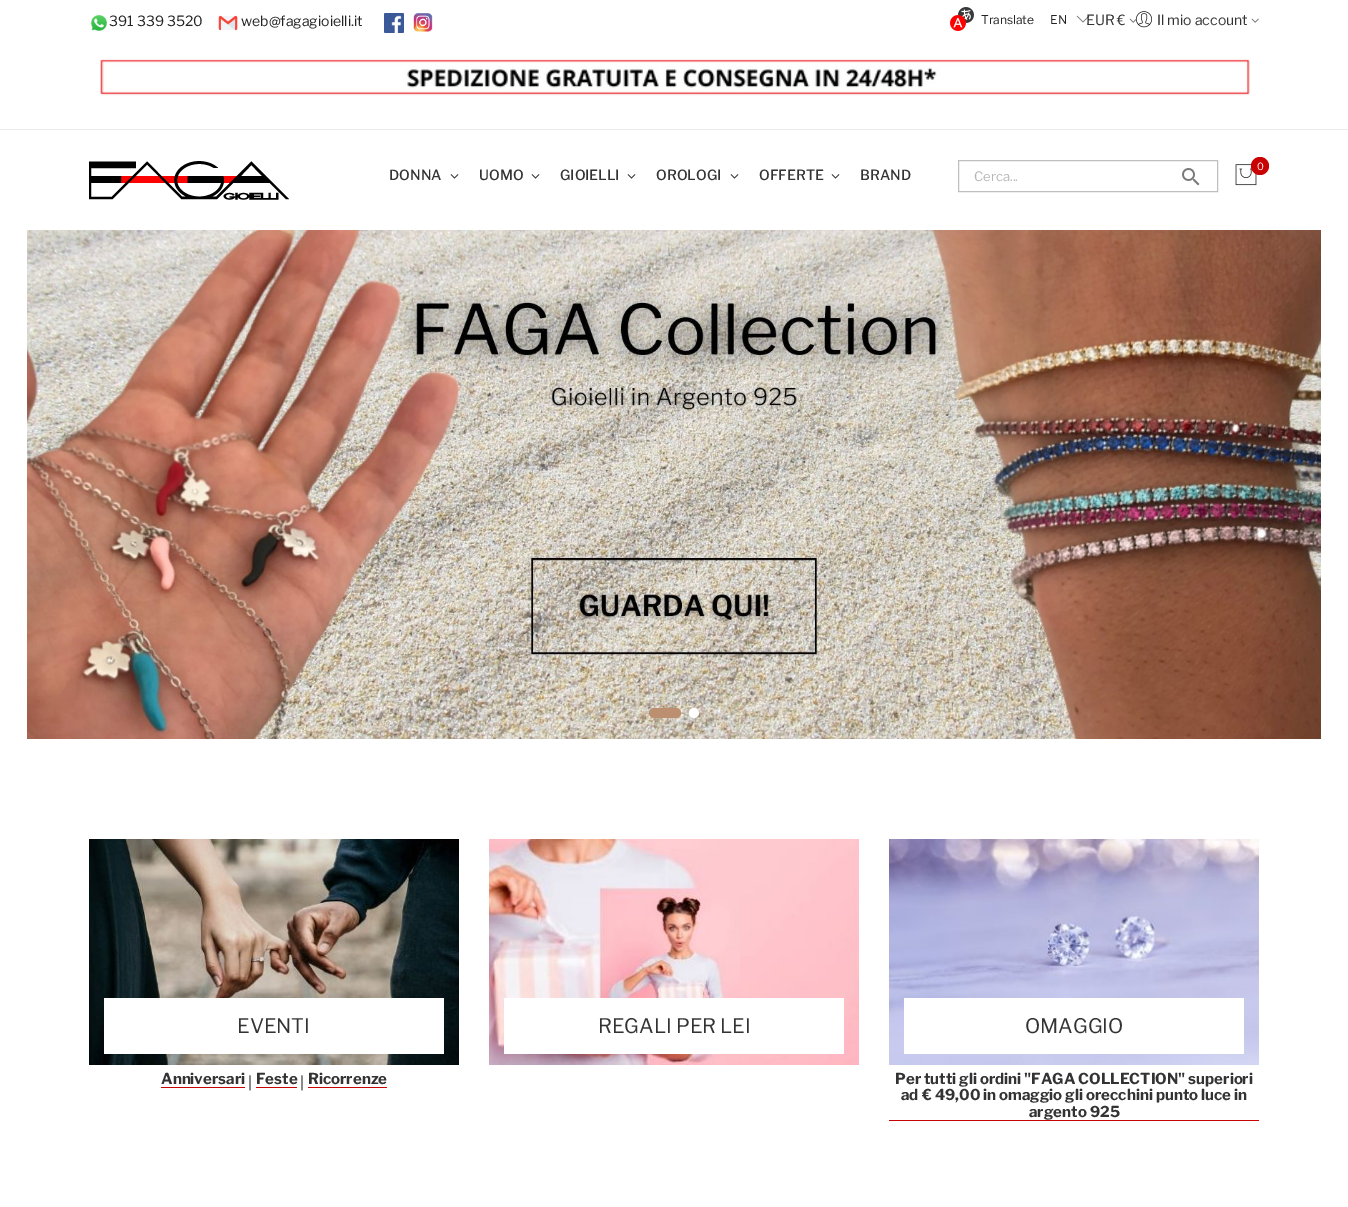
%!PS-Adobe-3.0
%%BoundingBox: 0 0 1348 1207
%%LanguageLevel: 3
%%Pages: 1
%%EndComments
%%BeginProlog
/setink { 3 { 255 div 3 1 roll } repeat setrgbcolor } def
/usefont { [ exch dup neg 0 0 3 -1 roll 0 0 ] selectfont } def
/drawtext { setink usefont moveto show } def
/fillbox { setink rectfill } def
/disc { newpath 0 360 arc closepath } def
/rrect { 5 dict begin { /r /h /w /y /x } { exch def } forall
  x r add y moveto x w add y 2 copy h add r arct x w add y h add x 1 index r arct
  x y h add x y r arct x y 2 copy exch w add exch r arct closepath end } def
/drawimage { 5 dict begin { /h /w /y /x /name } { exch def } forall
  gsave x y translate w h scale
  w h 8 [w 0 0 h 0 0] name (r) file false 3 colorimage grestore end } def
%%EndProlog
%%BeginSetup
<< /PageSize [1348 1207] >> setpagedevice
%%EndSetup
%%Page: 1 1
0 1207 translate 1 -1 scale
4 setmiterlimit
0 0 1348 1207 255 255 255 fillbox
0 129 1348 1 235 235 235 fillbox
(assets/img1.rgb) 91 15 16 16 drawimage
(391 339 3520) 109 26 /LibreFranklin-Regular 14 35 35 35 drawtext
(assets/img2.rgb) 218 15 20 16 drawimage
(web@fagagioielli.it) 241 26 /LibreFranklin-Regular 14 35 35 35 drawtext
(assets/img3.rgb) 384 13 20 20 drawimage
(assets/img4.rgb) 413 13 20 19 drawimage
(EUR €) 1086 25 /LibreFranklin-Regular 14 51 51 51 drawtext
(assets/img6.rgb) 1136 11 16 17 drawimage
(assets/img5.rgb) 1129 18 8 5 drawimage
(Il mio account) 1157 25 /LibreFranklin-Regular 14 51 51 51 drawtext
(assets/img7.rgb) 1251 18 8 5 drawimage
(assets/img8.rgb) 100 58 1150 38 drawimage
(assets/img9.rgb) 950 7 24 24 drawimage
(Translate) 981 24 /LibreFranklin-Regular 12 35 35 35 drawtext
(EN) 1050 24 /LibreFranklin-Regular 12 35 35 35 drawtext
(assets/img10.rgb) 1076 15 14 8 drawimage
(assets/img11.rgb) 89 161 200 39 drawimage
(assets/img12.rgb) 1235 164 22 22 drawimage
201 2 2 setink
1260 166 9 disc fill
(0) 1257 170 /LibreFranklin-Regular 10 255 255 255 drawtext
(DONNA) 389 180 /LibreFranklin-Medium 14 51 51 51 drawtext
(assets/img13.rgb) 450 174 9 5 drawimage
(UOMO) 479 180 /LibreFranklin-Medium 14 51 51 51 drawtext
(assets/img13.rgb) 531 174 9 5 drawimage
(GIOIELLI) 560 180 /LibreFranklin-Medium 14 51 51 51 drawtext
(assets/img13.rgb) 627 174 9 5 drawimage
(OROLOGI) 656 180 /LibreFranklin-Medium 14 51 51 51 drawtext
(assets/img13.rgb) 730 174 9 5 drawimage
(OFFERTE) 759 180 /LibreFranklin-Medium 14 51 51 51 drawtext
(assets/img13.rgb) 831 174 9 5 drawimage
(BRAND) 860 180 /LibreFranklin-Medium 14 51 51 51 drawtext
191 191 191 setink
958.5 160.5 259 31 rectstroke
(Cerca...) 974 181 /LibreFranklin-Regular 13 183 183 183 drawtext
(assets/img14.rgb) 1182 168 18 18 drawimage
(assets/img15.rgb) 27 230 1294 509 drawimage
189 143 113 setink
649 708 32 10 5 rrect fill
255 255 255 setink
694 713 5 disc fill
(assets/img16.rgb) 89 839 370 226 drawimage
104 998 340 56 255 255 255 fillbox
(EVENTI) 237 1033 /LibreFranklin-Regular 20 51 51 51 drawtext
(Anniversari) 161 1084 /LibreFranklin-Bold 15 51 51 51 drawtext
161 1087 84 1 201 2 2 fillbox
(|) 248 1088 /LibreFranklin-Light 15 35 35 35 drawtext
(Feste) 256 1084 /LibreFranklin-Bold 15 51 51 51 drawtext
256 1087 41 1 201 2 2 fillbox
(|) 300 1088 /LibreFranklin-Light 15 35 35 35 drawtext
(Ricorrenze) 308 1084 /LibreFranklin-Bold 15 51 51 51 drawtext
308 1087 79 1 201 2 2 fillbox
(assets/img17.rgb) 489 839 370 226 drawimage
504 998 340 56 255 255 255 fillbox
(REGALI PER LEI) 598 1033 /LibreFranklin-Regular 20 51 51 51 drawtext
(assets/img18.rgb) 889 839 370 226 drawimage
904 998 340 56 255 255 255 fillbox
(OMAGGIO) 1025 1033 /LibreFranklin-Regular 20 51 51 51 drawtext
(Per tutti gli ordini "FAGA COLLECTION" superiori) 895 1084 /LibreFranklin-Bold 15 51 51 51 drawtext
(ad € 49,00 in omaggio gli orecchini punto luce in) 901 1100 /LibreFranklin-Bold 15 51 51 51 drawtext
(argento 925) 1029 1117 /LibreFranklin-Bold 15 51 51 51 drawtext
889 1120 370 1 201 2 2 fillbox
showpage
%%EOF
